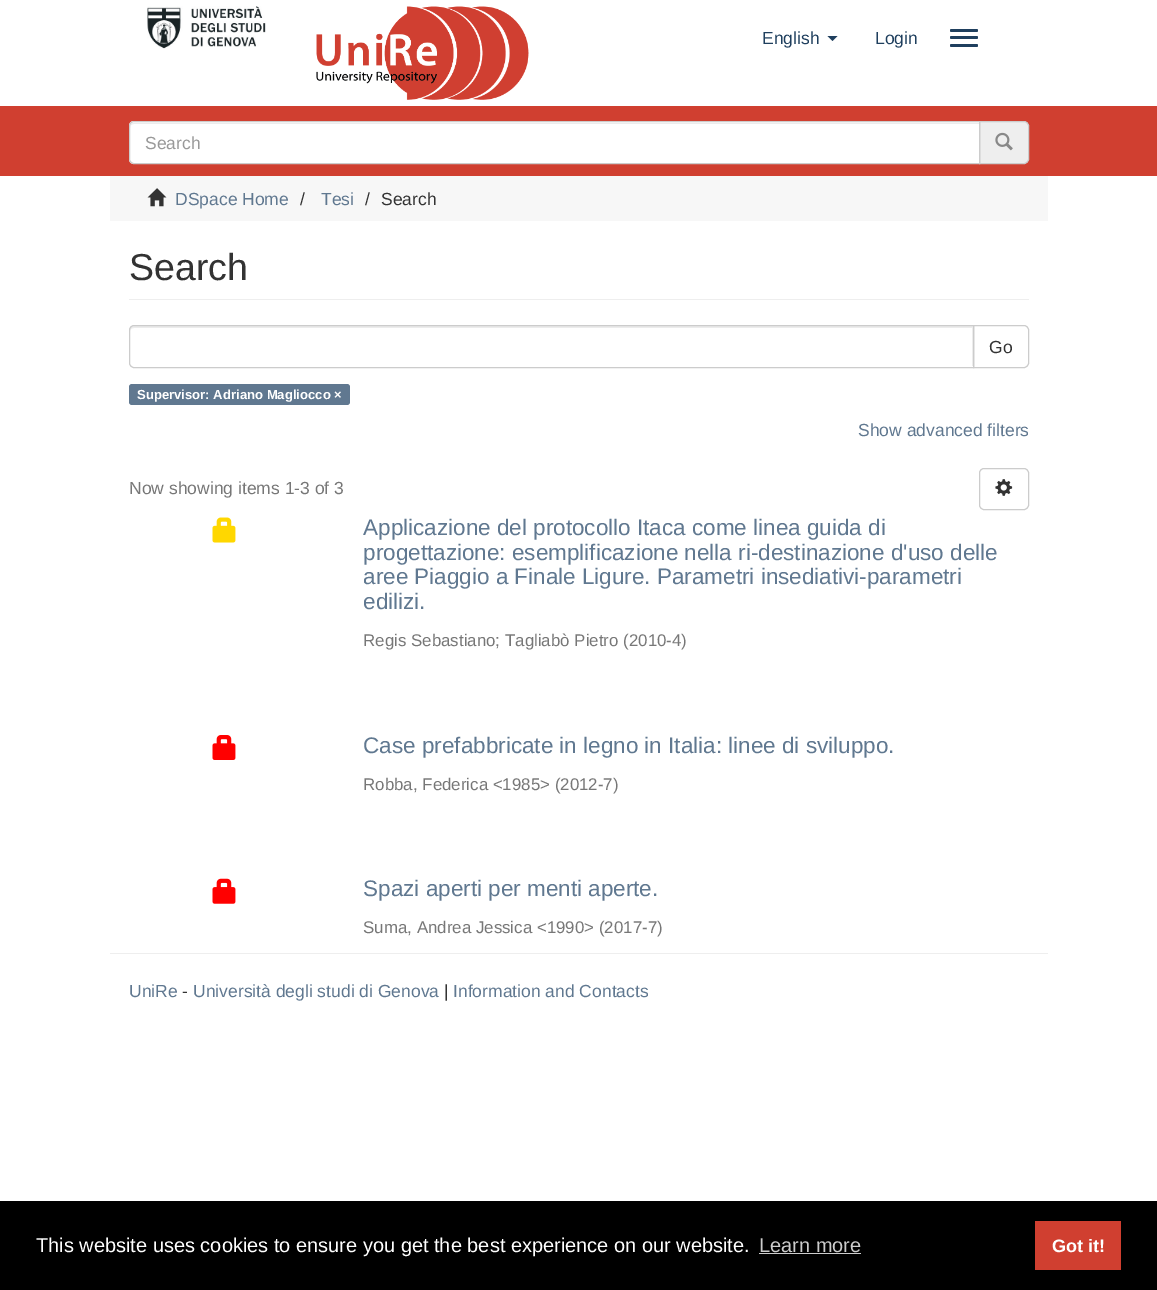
%!PS-Adobe-3.0
%%BoundingBox: 0 0 1157 1290
%%LanguageLevel: 3
%%Pages: 1
%%EndComments
%%BeginProlog
/setink { 3 { 255 div 3 1 roll } repeat setrgbcolor } def
/usefont { [ exch dup neg 0 0 3 -1 roll 0 0 ] selectfont } def
/drawtext { setink usefont moveto show } def
/fillbox { setink rectfill } def
/rrect { 5 dict begin { /r /h /w /y /x } { exch def } forall
  x r add y moveto x w add y 2 copy h add r arct x w add y h add x 1 index r arct
  x y h add x y r arct x y 2 copy exch w add exch r arct closepath end } def
/drawimage { 5 dict begin { /h /w /y /x /name } { exch def } forall
  gsave x y translate w h scale
  w h 8 [w 0 0 h 0 0] name (r) file false 3 colorimage grestore end } def
%%EndProlog
%%BeginSetup
<< /PageSize [1157 1290] >> setpagedevice
%%EndSetup
%%Page: 1 1
0 1290 translate 1 -1 scale
4 setmiterlimit
0 0 1157 1290 255 255 255 fillbox
(assets/img1.rgb) 147 6 119 43 drawimage
(assets/img2.rgb) 316 6 213 94 drawimage
(English) 762 44 /LiberationSans-Regular 17.5 31 63 94 drawtext
827.5 36 moveto 837.5 36 lineto 832.5 41 lineto closepath fill
(Login) 875 44 /LiberationSans-Regular 17.5 31 63 94 drawtext
950 29 28 3 1.5 rrect fill
950 36 28 3 1.5 rrect fill
950 44 28 3 1.5 rrect fill
0 106 1157 70 208 63 48 fillbox
238 238 238 setink
979.5 121.5 moveto 1024 121.5 lineto 1026.5 121.5 1028.5 123.5 1028.5 126 curveto 1028.5 159 lineto 1028.5 161.5 1026.5 163.5 1024 163.5 curveto 979.5 163.5 lineto closepath gsave fill grestore
204 204 204 setink
stroke
255 255 255 setink
134 121 moveto 980 121 lineto 980 164 lineto 134 164 lineto 131 164 129 162 129 159 curveto 129 126 lineto 129 123 131 121 134 121 curveto closepath fill
236 236 236 setink
134 124 moveto 979 124 lineto 979 123 lineto 134 123 lineto 131 123 130 125 130 128 curveto 130 125 132 124 134 124 curveto closepath fill
204 204 204 setink
134 121.5 moveto 979.5 121.5 lineto 979.5 163.5 lineto 134 163.5 lineto 131.5 163.5 129.5 161.5 129.5 159 curveto 129.5 126 lineto 129.5 123.5 131.5 121.5 134 121.5 curveto closepath stroke
(Search) 145 149 /LiberationSans-Regular 17.5 153 153 153 drawtext
(assets/img3.rgb) 995 132 18 19 drawimage
110 176 938 45 247 247 247 fillbox
(assets/img4.rgb) 147 188 20 19 drawimage
(DSpace Home) 175 205 /LiberationSans-Regular 17.5 96 120 144 drawtext
(/) 300 205 /LiberationSans-Regular 17.5 51 51 51 drawtext
(Tesi) 321 205 /LiberationSans-Regular 17.5 96 120 144 drawtext
(/) 365 205 /LiberationSans-Regular 17.5 51 51 51 drawtext
(Search) 381 205 /LiberationSans-Regular 17.5 51 51 51 drawtext
129 299 900 1 238 238 238 fillbox
(Search) 129 280 /LiberationSans-Regular 37.5 51 51 51 drawtext
204 204 204 setink
973.5 325.5 moveto 1024 325.5 lineto 1026.5 325.5 1028.5 327.5 1028.5 330 curveto 1028.5 363 lineto 1028.5 365.5 1026.5 367.5 1024 367.5 curveto 973.5 367.5 lineto closepath stroke
255 255 255 setink
134 325 moveto 974 325 lineto 974 368 lineto 134 368 lineto 131 368 129 366 129 363 curveto 129 330 lineto 129 327 131 325 134 325 curveto closepath fill
236 236 236 setink
134 328 moveto 972 328 lineto 972 366 lineto 973 366 lineto 973 326 lineto 134 326 lineto 131 326 130 328 130 331 curveto 130 329 132 328 134 328 curveto closepath fill
204 204 204 setink
134 325.5 moveto 973.5 325.5 lineto 973.5 367.5 lineto 134 367.5 lineto 131.5 367.5 129.5 365.5 129.5 363 curveto 129.5 330 lineto 129.5 327.5 131.5 325.5 134 325.5 curveto closepath stroke
(Go) 989 353 /LiberationSans-Regular 17.5 51 51 51 drawtext
96 120 144 setink
129 384 221 21 3 rrect fill
(Supervisor: Adriano Magliocco ×) 137 399 /LiberationSans-Bold 13.1 255 255 255 drawtext
(Show advanced filters) 858 436 /LiberationSans-Regular 17.5 96 120 144 drawtext
(Now showing items 1-3 of 3) 129 494 /LiberationSans-Regular 17.5 119 119 119 drawtext
204 204 204 setink
979.5 468.5 49 41 4.5 rrect stroke
(assets/img5.rgb) 995 479 18 17 drawimage
(assets/img6.rgb) 212 517 24 26 drawimage
(Applicazione del protocollo Itaca come linea guida di) 363 535 /LiberationSans-Regular 22.5 96 120 144 drawtext
(progettazione: esemplificazione nella ri-destinazione d'uso delle) 363 560 /LiberationSans-Regular 22.5 96 120 144 drawtext
(aree Piaggio a Finale Ligure. Parametri insediativi-parametri) 363 584 /LiberationSans-Regular 22.5 96 120 144 drawtext
(edilizi.) 363 609 /LiberationSans-Regular 22.5 96 120 144 drawtext
(Regis Sebastiano; Tagliabò Pietro \(2010-4\)) 363 646 /LiberationSans-Regular 16.9 119 119 119 drawtext
(assets/img7.rgb) 212 735 24 25 drawimage
(Case prefabbricate in legno in Italia: linee di sviluppo.) 363 753 /LiberationSans-Regular 22.5 96 120 144 drawtext
(Robba, Federica <1985> \(2012-7\)) 363 790 /LiberationSans-Regular 16.9 119 119 119 drawtext
(assets/img8.rgb) 212 878 24 26 drawimage
(Spazi aperti per menti aperte.) 363 896 /LiberationSans-Regular 22.5 96 120 144 drawtext
(Suma, Andrea Jessica <1990> \(2017-7\)) 363 933 /LiberationSans-Regular 16.9 119 119 119 drawtext
110 953 938 1 238 238 238 fillbox
(UniRe) 129 997 /LiberationSans-Regular 17.5 96 120 144 drawtext
(-) 182 997 /LiberationSans-Regular 17.5 51 51 51 drawtext
(Università degli studi di Genova) 193 997 /LiberationSans-Regular 17.5 96 120 144 drawtext
(|) 444 997 /LiberationSans-Regular 17.5 51 51 51 drawtext
(Information and Contacts) 453 997 /LiberationSans-Regular 17.5 96 120 144 drawtext
0 1201 1157 89 0 0 0 fillbox
(This website uses cookies to ensure you get the best experience on our website.) 36 1252 /LiberationSans-Regular 20 255 255 255 drawtext
(Learn more) 759 1252 /LiberationSans-Regular 20 204 204 204 drawtext
759 1253 102 1 204 204 204 fillbox
1035 1221 86 49 208 63 48 fillbox
(Got it!) 1052 1252 /LiberationSans-Bold 18 255 255 255 drawtext
showpage
%%EOF
